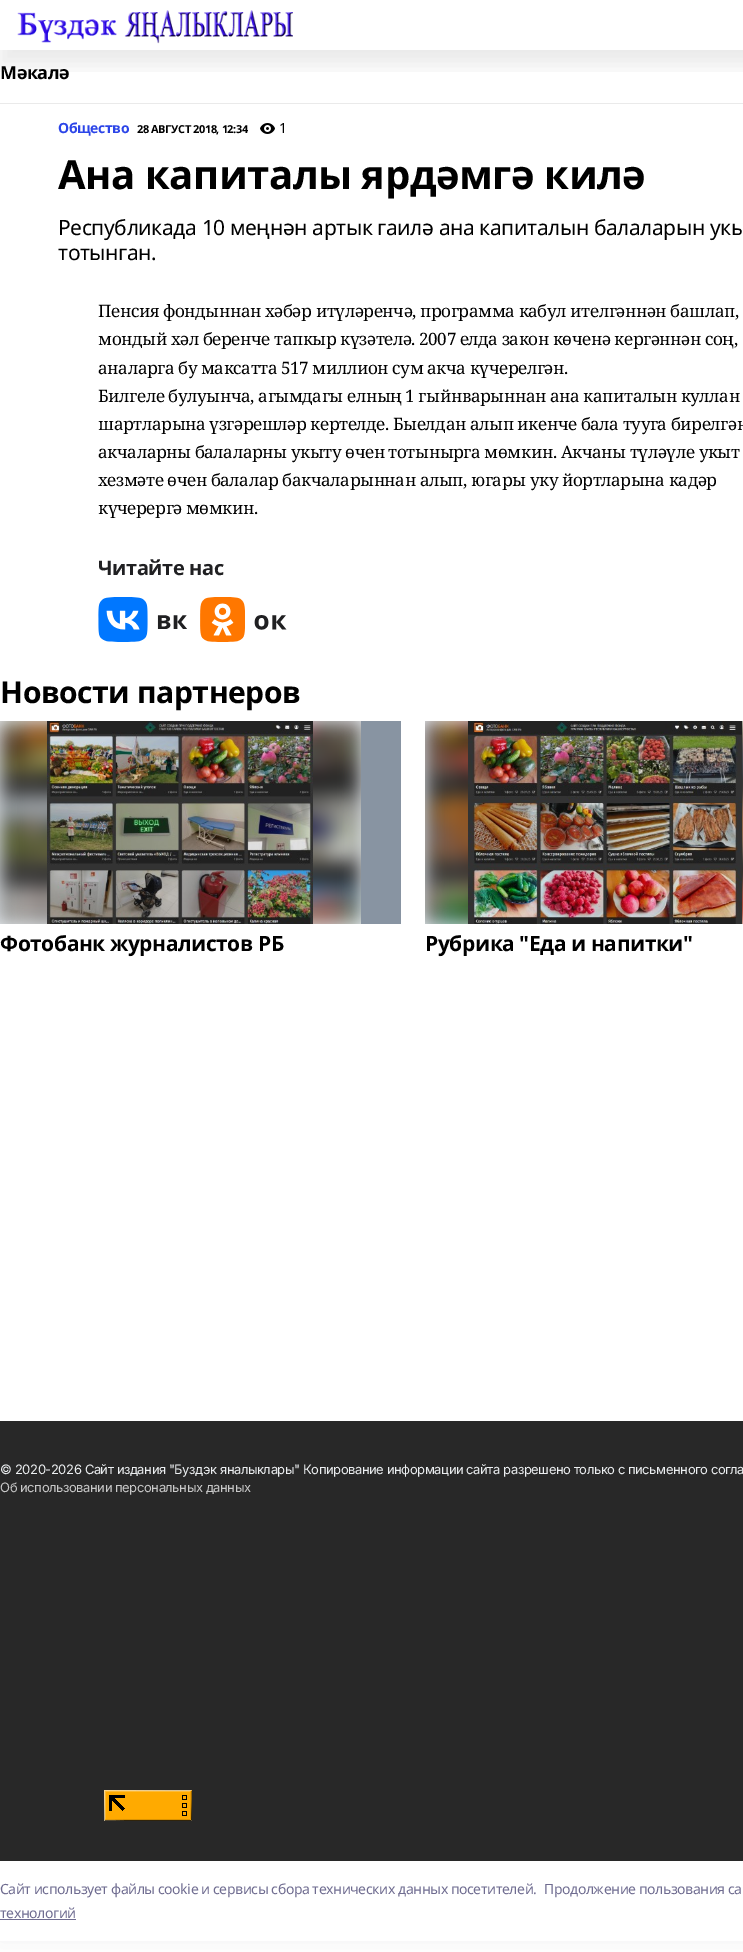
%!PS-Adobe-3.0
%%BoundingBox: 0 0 743 1952
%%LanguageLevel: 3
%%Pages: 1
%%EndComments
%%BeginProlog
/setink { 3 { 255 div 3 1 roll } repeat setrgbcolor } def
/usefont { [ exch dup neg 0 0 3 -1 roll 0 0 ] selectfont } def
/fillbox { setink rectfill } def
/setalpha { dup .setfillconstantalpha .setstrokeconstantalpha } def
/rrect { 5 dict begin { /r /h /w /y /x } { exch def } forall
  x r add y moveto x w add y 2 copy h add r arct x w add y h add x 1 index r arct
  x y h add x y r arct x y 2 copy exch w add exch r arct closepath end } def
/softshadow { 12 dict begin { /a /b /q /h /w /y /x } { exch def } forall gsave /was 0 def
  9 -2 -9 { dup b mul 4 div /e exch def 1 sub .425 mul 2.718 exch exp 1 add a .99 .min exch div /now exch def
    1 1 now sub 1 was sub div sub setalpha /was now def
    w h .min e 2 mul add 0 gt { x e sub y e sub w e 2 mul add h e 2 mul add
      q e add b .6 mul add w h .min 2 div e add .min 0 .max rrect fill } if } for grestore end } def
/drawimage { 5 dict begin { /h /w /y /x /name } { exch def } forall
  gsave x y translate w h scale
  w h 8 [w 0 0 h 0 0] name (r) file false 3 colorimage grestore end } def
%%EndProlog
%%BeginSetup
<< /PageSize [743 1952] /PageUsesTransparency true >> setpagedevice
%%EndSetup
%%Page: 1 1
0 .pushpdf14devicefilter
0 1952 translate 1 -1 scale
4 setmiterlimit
0 0 743 1952 255 255 255 fillbox
gsave
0 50 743 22 rectclip
0 0 0 setink
0 15 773 50 0 10 0.08 softshadow
grestore
(assets/img1.rgb) 17 10 276 34 drawimage
0 103 743 1 234 234 234 fillbox
/NotoSans-Bold 18 usefont
0 0 0 setink
0 79 moveto -0.42 0 (Мәкалә) ashow
/NotoSans-Bold 14 usefont
44 69 232 setink
58 133 moveto -0.42 0 (Общество) ashow
/NotoSans-Bold 11 usefont
0 0 0 setink
137 133 moveto -0.42 0 (28 АВГУСТ 2018, 12:34) ashow
(assets/img2.rgb) 260 123 15 11 drawimage
/NotoSans-Regular 14 usefont
279 133 moveto -0.42 0 (1) ashow
/NotoSans-Bold 40 usefont
58 189 moveto -0.42 0 (Ана капиталы ярдәмгә килә) ashow
/NotoSans-Regular 21 usefont
58 235 moveto -0.42 0 (Республикада 10 меңнән артык гаилә ана капиталын балаларын укы) ashow
58 260 moveto -0.42 0 (тотынган.) ashow
/NotoSerif-Regular 17 usefont
98 317 moveto -0.42 0 (Пенсия фондыннан хәбәр итүләренчә, программа кабул ителгәннән башлап,) ashow
98 345 moveto -0.42 0 (мондый хәл беренче тапкыр күзәтелә. 2007 елда закон көченә кергәннән соң,) ashow
98 374 moveto -0.42 0 (аналарга бу максатта 517 миллион сум акча күчерелгән.) ashow
98 402 moveto -0.42 0 (Билгеле булуынча, агымдагы елның 1 гыйнварыннан ана капиталын куллан) ashow
98 430 moveto -0.42 0 (шартларына үзгәрешләр кертелде. Быелдан алып икенче бала тууга бирелгән) ashow
98 458 moveto -0.42 0 (акчаларны балаларны укыту өчен тотынырга мөмкин. Акчаны түләүле укыт) ashow
98 486 moveto -0.42 0 (хезмәте өчен балалар бакчаларыннан алып, югары уку йортларына кадәр) ashow
98 514 moveto -0.42 0 (күчерергә мөмкин.) ashow
/NotoSans-Bold 20 usefont
32 32 34 setink
98 575 moveto -0.42 0 (Читайте нас) ashow
(assets/img3.rgb) 98 597 89 45 drawimage
(assets/img4.rgb) 200 597 87 45 drawimage
/NotoSans-Bold 30 usefont
0 0 0 setink
0 703 moveto -0.42 0 (Новости партнеров) ashow
361 721 40 203 136 148 162 fillbox
0 721 361 203 237 242 247 fillbox
(assets/img5.rgb) 0 721 361 203 drawimage
(assets/img6.rgb) 47 721 266 203 drawimage
/NotoSans-Bold 21 usefont
0 0 0 setink
0 951 moveto -0.42 0 (Фотобанк журналистов РБ) ashow
425 721 318 203 237 242 247 fillbox
(assets/img7.rgb) 425 721 318 203 drawimage
(assets/img8.rgb) 468 721 274 203 drawimage
0 0 0 setink
425 951 moveto -0.42 0 (Рубрика "Еда и напитки") ashow
0 1421 743 440 40 40 40 fillbox
/Inter-Regular 13 usefont
236 239 241 setink
0 1474 moveto -0.42 0 (© 2020-2026 Сайт издания "Буздэк яналыклары" Копирование информации сайта разрешено только с письменного согла) ashow
201 201 201 setink
0 1492 moveto -0.42 0 (Об использовании персональных данных) ashow
(assets/img9.rgb) 104 1790 88 31 drawimage
20 20 43 setink
0 1855 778 80 0 11.5 0.08 softshadow
0 1861 743 80 255 255 255 fillbox
/NotoSans-Regular 14 usefont
111 108 144 setink
0 1894 moveto -0.42 0 (Cайт использует файлы cookie и сервисы сбора технических данных посетителей.) ashow
544 1894 moveto -0.42 0 (Продолжение пользования са) ashow
0 1918 moveto -0.42 0 (технологий) ashow
0 1919 76 1 111 108 144 fillbox
.poppdf14devicefilter showpage
%%EOF
